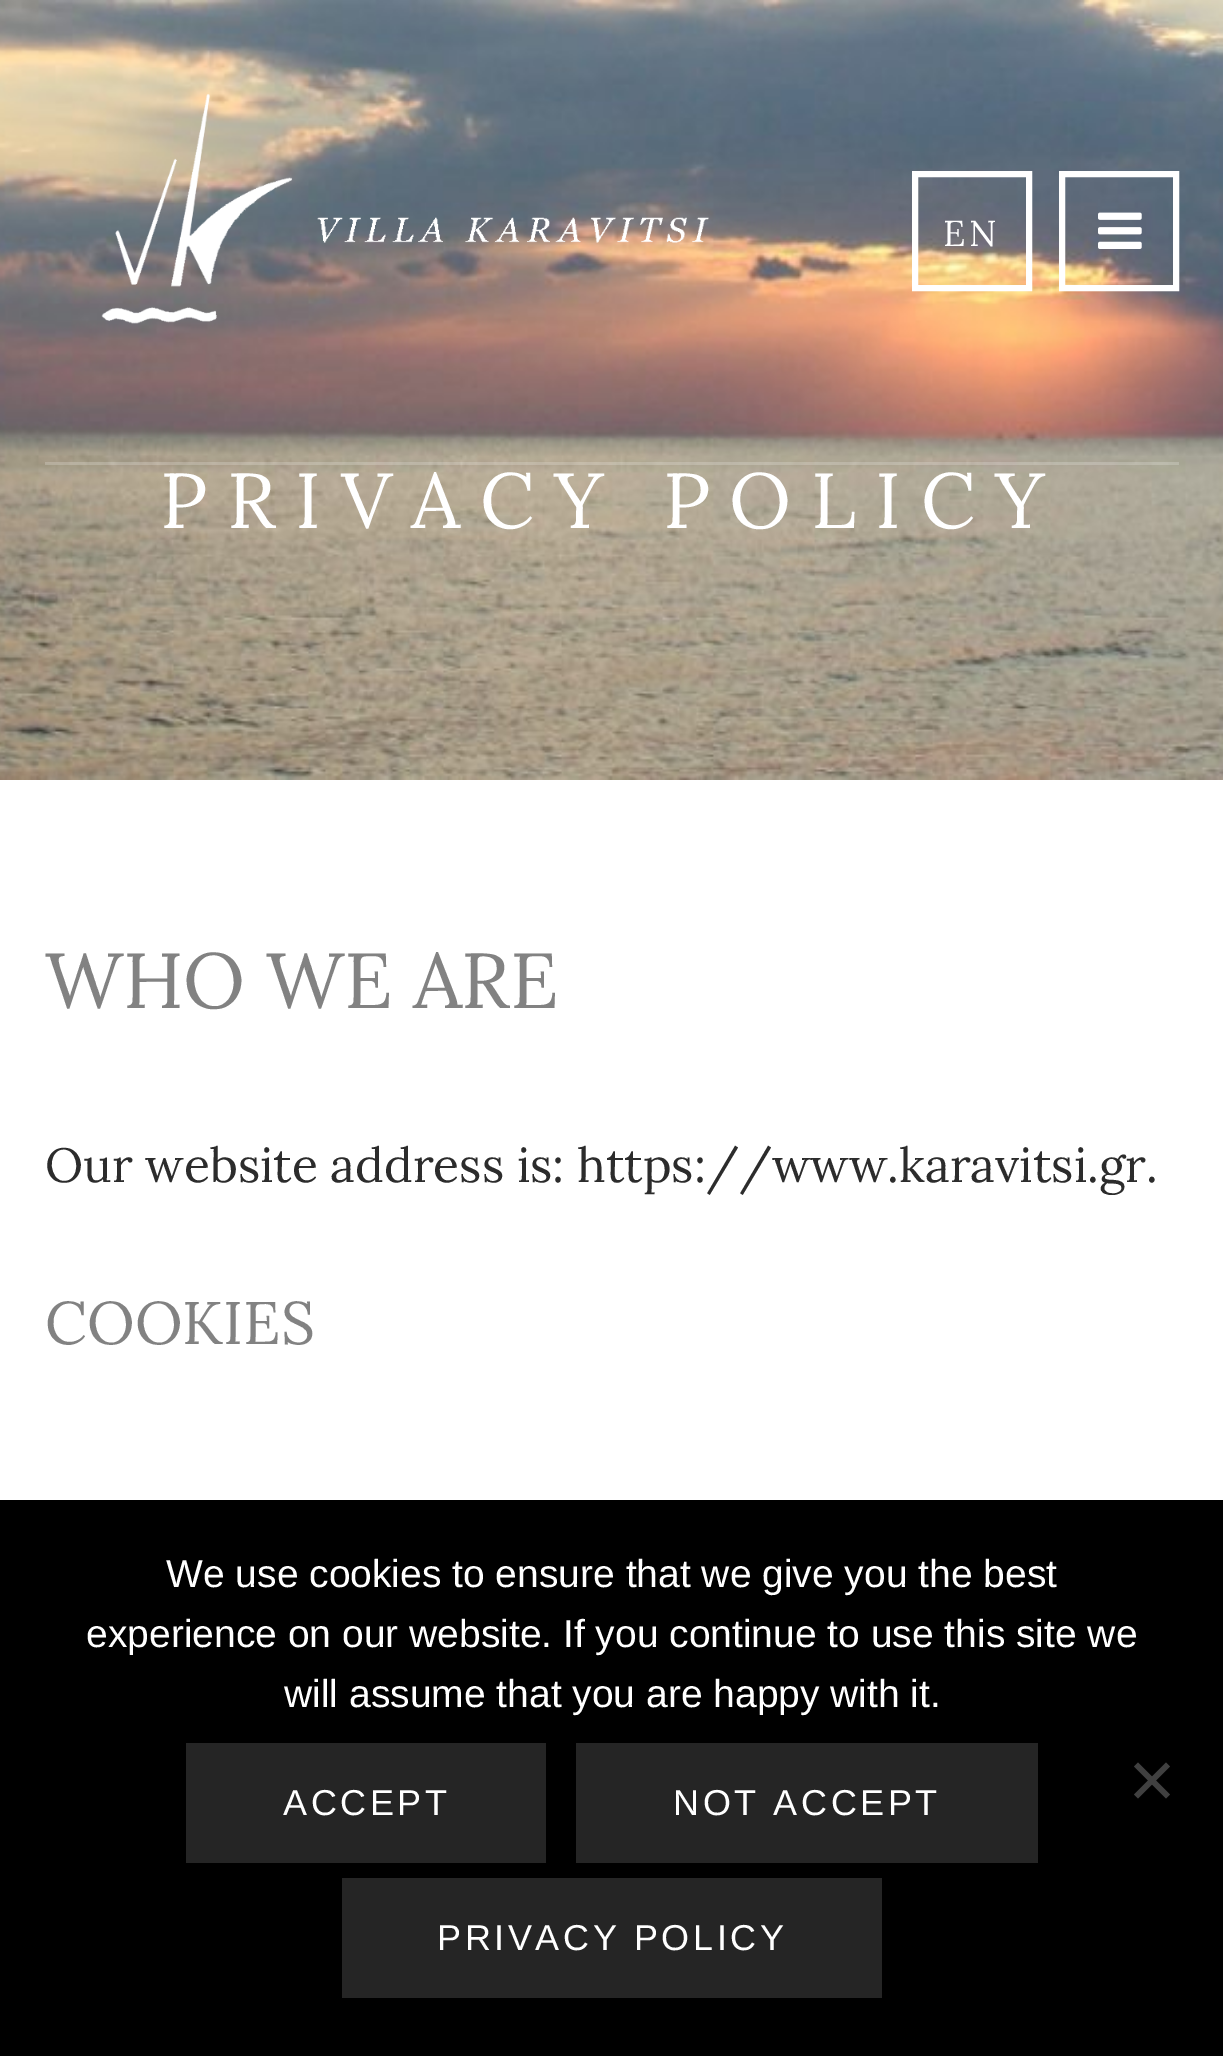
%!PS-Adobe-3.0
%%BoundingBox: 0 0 1223 2056
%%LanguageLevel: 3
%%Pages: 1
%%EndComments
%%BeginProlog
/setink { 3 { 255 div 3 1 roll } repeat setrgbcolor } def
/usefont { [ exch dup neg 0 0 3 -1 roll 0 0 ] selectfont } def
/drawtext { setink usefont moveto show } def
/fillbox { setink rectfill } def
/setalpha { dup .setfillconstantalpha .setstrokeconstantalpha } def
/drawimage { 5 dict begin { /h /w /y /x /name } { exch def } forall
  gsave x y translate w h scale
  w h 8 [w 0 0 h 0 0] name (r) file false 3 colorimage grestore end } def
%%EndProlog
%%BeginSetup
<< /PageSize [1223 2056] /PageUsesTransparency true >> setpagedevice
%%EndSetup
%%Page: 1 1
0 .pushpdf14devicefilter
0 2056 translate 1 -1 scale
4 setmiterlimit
0 0 1223 2056 255 255 255 fillbox
(assets/img3.rgb) 0 0 1223 780 drawimage
0.2 setalpha
45 462 1134 3 255 255 255 fillbox
1 setalpha
(assets/img1.rgb) 101 94 608 230 drawimage
6 setlinewidth
915 174 114 114 rectstroke
/Lora-Regular 36 usefont
943 246 moveto 3.6 0 (EN) ashow
1062 174 114 114 rectstroke
(assets/img2.rgb) 1098 212 44 37 drawimage
/Lora-Regular 78 usefont
160 528 moveto 19.5 0 (PRIVACY POLICY) ashow
(WHO WE ARE) 45 1008 /Lora-Regular 78 130 130 130 drawtext
(Our website address is: https://www.karavitsi.gr.) 45 1182 /Lora-Regular 48 44 44 44 drawtext
(COOKIES) 45 1344 /Lora-Regular 60 130 130 130 drawtext
0 1500 1223 556 0 0 0 fillbox
(We use cookies to ensure that we give you the best) 166 1587 /LiberationSans-Regular 39 255 255 255 drawtext
(experience on our website. If you continue to use this site we) 86 1647 /LiberationSans-Regular 39 255 255 255 drawtext
(will assume that you are happy with it.) 284 1707 /LiberationSans-Regular 39 255 255 255 drawtext
64 64 64 setink
1166 1762.5 moveto 1170 1766.5 lineto 1138 1798.5 lineto 1134 1794.5 lineto closepath fill
1134 1766.5 moveto 1138 1762.5 lineto 1170 1794.5 lineto 1166 1798.5 lineto closepath fill
186 1743 360 120 37 37 37 fillbox
/LiberationSans-Regular 36 usefont
255 255 255 setink
283 1815 moveto 3.6 0 (ACCEPT) ashow
576 1743 462 120 37 37 37 fillbox
255 255 255 setink
673 1815 moveto 3.6 0 (NOT ACCEPT) ashow
342 1878 540 120 37 37 37 fillbox
255 255 255 setink
437 1950 moveto 3.6 0 (PRIVACY POLICY) ashow
.poppdf14devicefilter showpage
%%EOF
